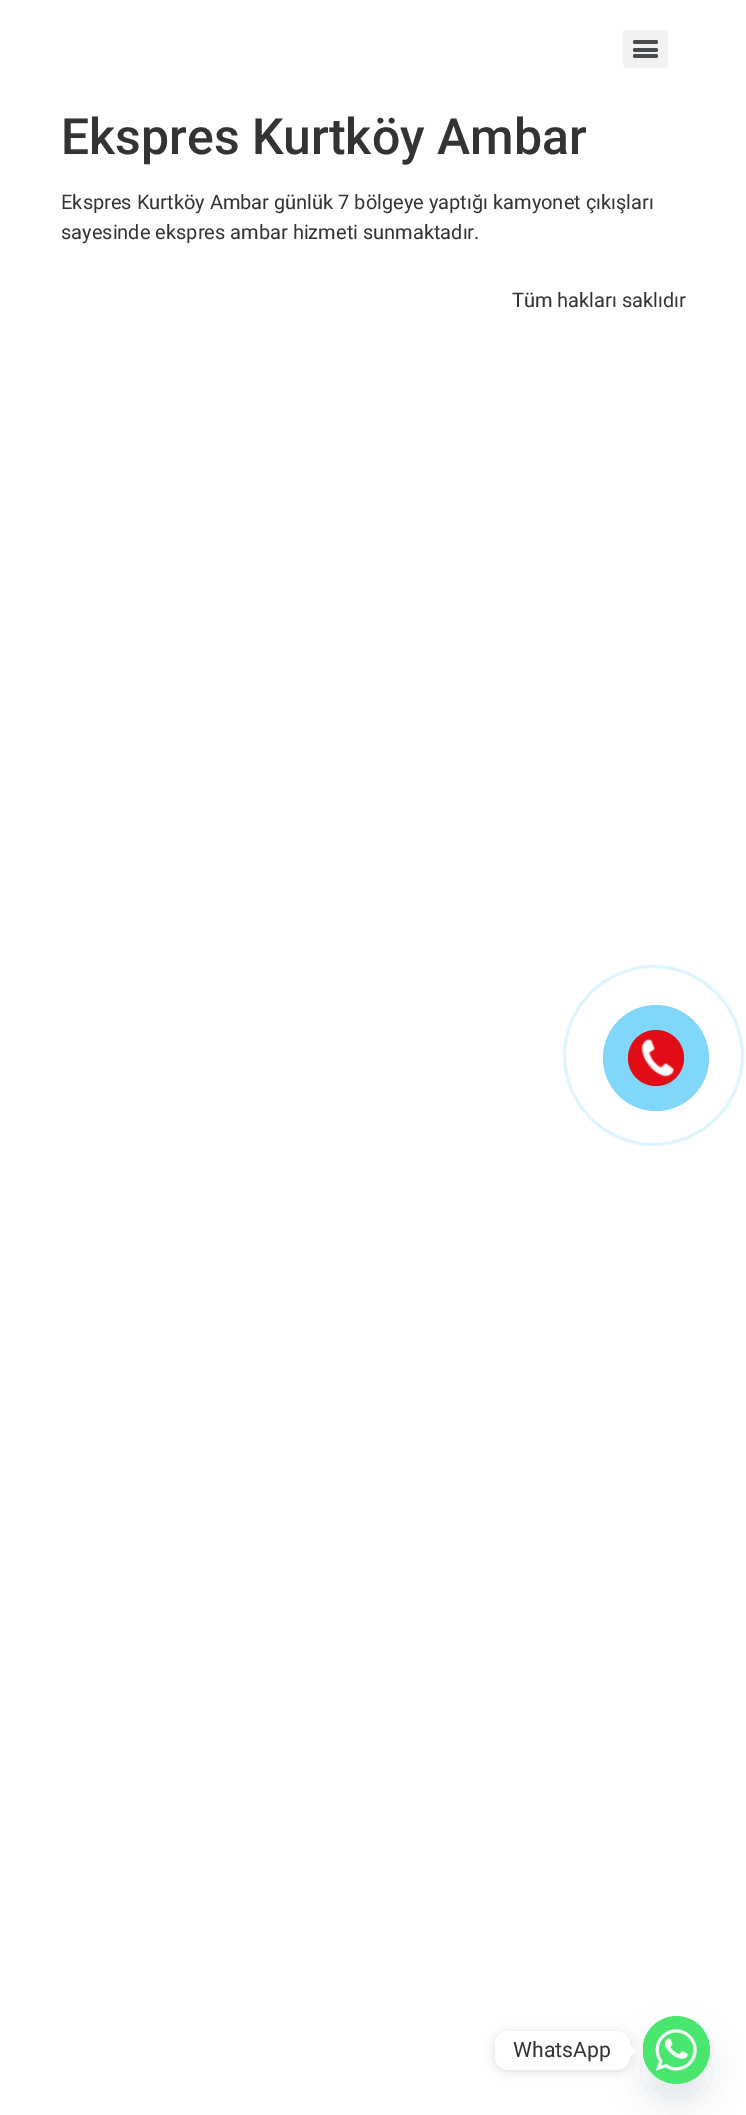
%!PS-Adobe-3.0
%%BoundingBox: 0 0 746 2115
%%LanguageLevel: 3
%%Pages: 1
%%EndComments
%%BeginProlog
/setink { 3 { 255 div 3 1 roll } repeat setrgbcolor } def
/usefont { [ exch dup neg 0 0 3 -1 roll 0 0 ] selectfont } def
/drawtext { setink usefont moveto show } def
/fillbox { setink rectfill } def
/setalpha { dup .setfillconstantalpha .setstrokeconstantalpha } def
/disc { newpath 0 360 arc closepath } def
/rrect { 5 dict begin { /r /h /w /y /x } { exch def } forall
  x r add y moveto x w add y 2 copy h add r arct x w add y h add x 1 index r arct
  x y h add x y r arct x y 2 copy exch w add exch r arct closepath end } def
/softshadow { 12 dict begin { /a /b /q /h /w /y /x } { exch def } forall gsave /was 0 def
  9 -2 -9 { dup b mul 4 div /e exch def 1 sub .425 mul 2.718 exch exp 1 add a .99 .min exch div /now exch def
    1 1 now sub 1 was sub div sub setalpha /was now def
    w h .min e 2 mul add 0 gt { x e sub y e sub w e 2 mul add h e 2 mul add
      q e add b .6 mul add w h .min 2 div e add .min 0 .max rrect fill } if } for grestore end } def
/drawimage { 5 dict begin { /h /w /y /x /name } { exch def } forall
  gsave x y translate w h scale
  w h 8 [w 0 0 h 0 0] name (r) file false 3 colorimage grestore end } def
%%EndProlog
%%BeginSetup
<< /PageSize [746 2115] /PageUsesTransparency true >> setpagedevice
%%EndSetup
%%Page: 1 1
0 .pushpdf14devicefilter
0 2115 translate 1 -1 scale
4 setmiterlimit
0 0 746 2115 255 255 255 fillbox
242 242 242 setink
623 30 45 38 4 rrect fill
73 76 79 setink
633 48 25 4 2 rrect fill
633 40 25 4 2 rrect fill
633 54 25 4 2 rrect fill
(Ekspres Kurtköy Ambar) 61 154 /Roboto-Medium 50 51 51 51 drawtext
(Ekspres Kurtköy Ambar günlük 7 bölgeye yaptığı kamyonet çıkışları) 61 209 /Roboto-Regular 20 51 51 51 drawtext
(sayesinde ekspres ambar hizmeti sunmaktadır.) 61 239 /Roboto-Regular 20 51 51 51 drawtext
(Tüm hakları saklıdır) 512 307 /Roboto-Regular 20 51 51 51 drawtext
223 245 254 setink
3 setlinewidth
653.5 1055.5 89 disc stroke
128 215 249 setink
656 1058 53 disc fill
227 13 24 setink
656 1058 28 disc fill
(assets/img1.rgb) 641 1038 33 39 drawimage
73 104 126 setink
643 2036 67 68 33.5 15 0.16 softshadow
73 230 112 setink
643 2016 67 68 33.5 rrect fill
(assets/img2.rgb) 643 2016 67 68 drawimage
0 0 0 setink
495 2033 135 38 13 5 0.15 softshadow
255 255 255 setink
495 2031 135 39 13 rrect fill
(WhatsApp) 513 2057 /Roboto-Regular 21.25 51 51 51 drawtext
255 255 255 setink
630 2057 moveto 630 2044.5 lineto 636 2050.5 lineto closepath fill
.poppdf14devicefilter showpage
%%EOF
